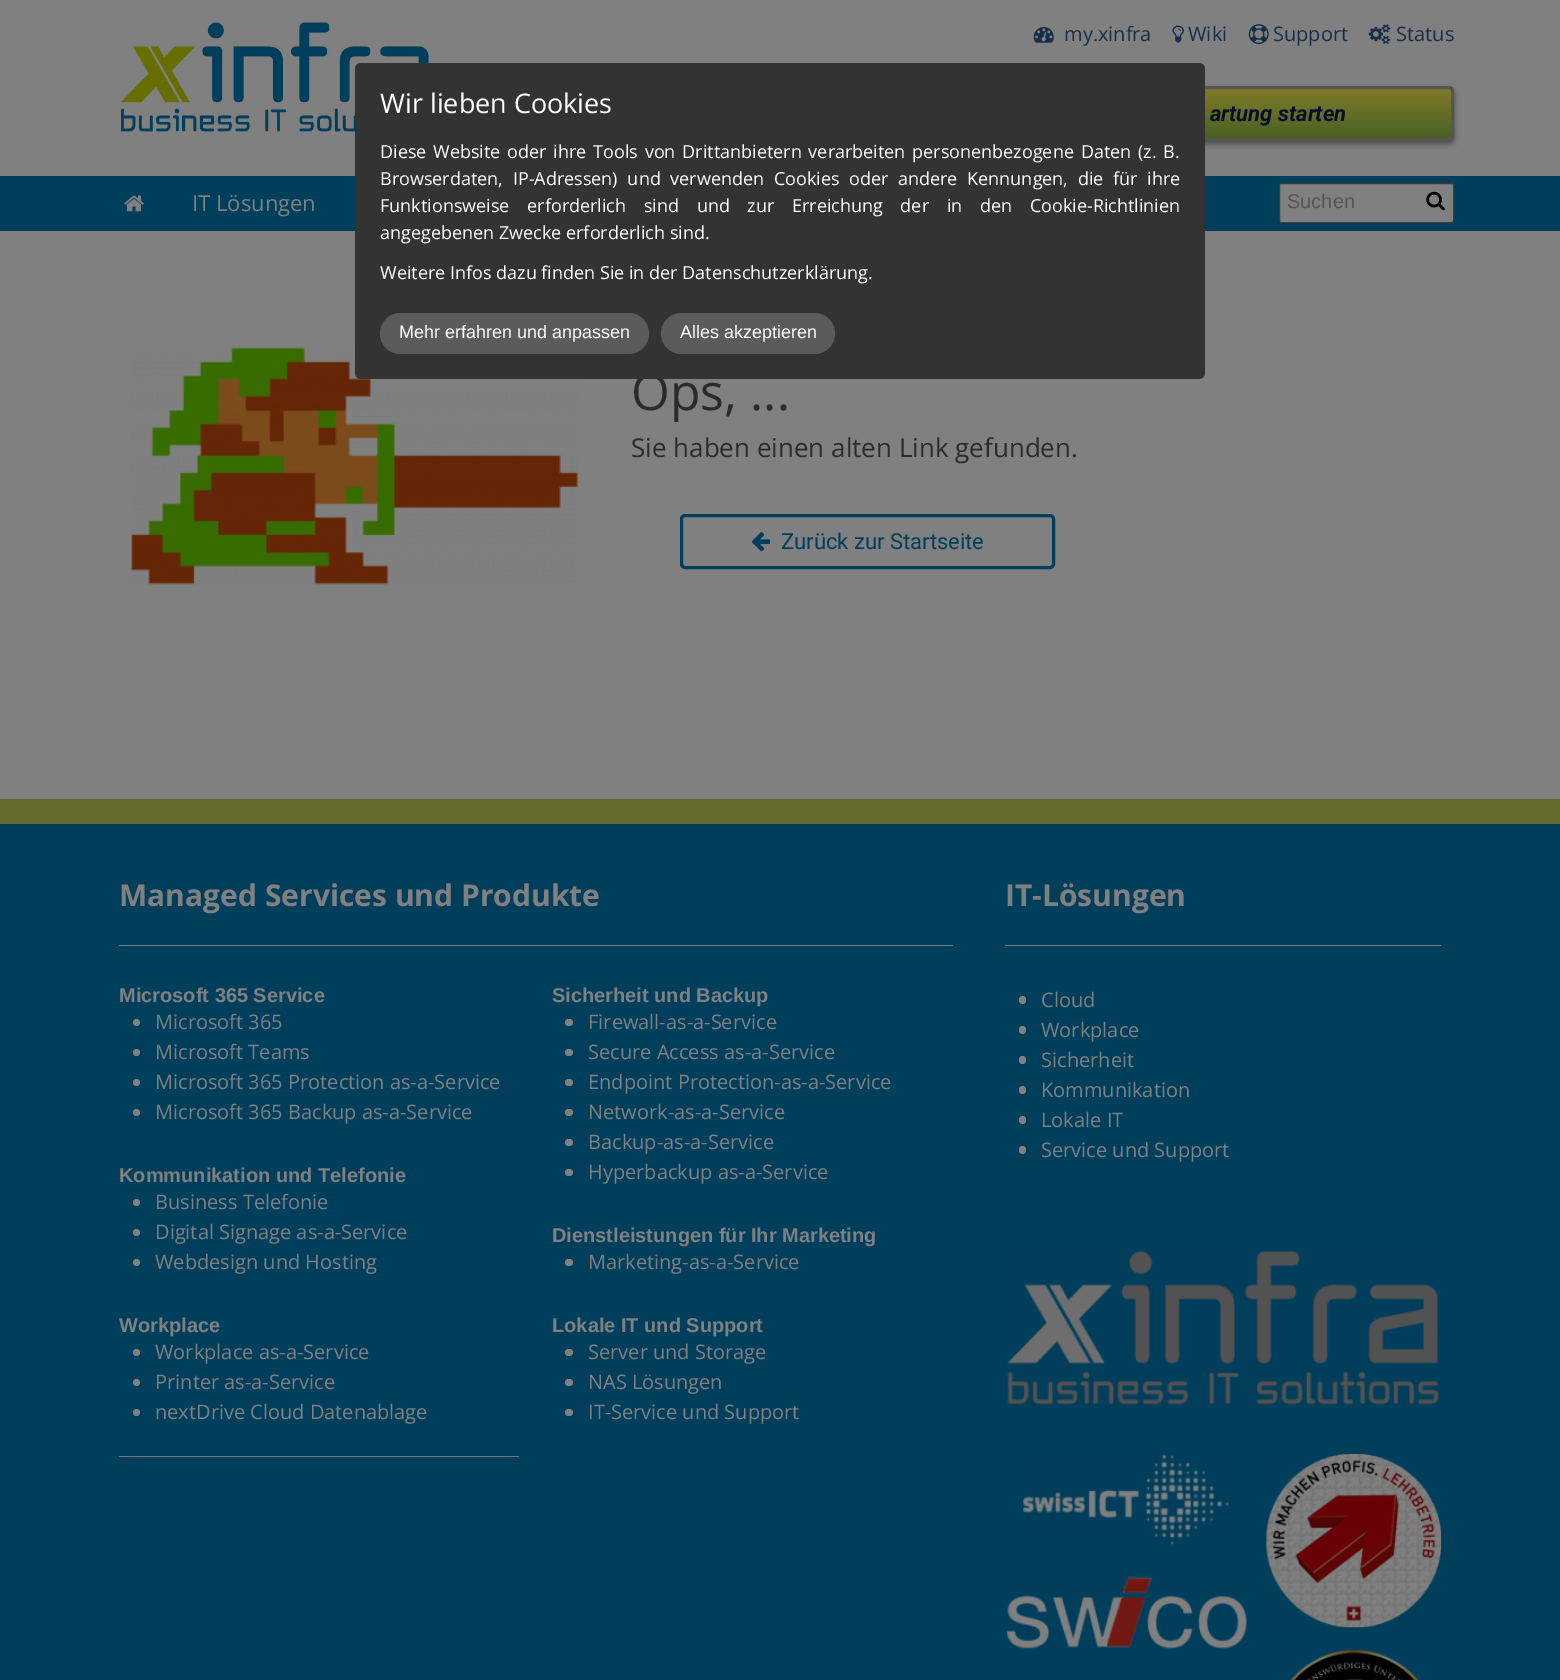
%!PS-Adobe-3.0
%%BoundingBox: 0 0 1560 1680
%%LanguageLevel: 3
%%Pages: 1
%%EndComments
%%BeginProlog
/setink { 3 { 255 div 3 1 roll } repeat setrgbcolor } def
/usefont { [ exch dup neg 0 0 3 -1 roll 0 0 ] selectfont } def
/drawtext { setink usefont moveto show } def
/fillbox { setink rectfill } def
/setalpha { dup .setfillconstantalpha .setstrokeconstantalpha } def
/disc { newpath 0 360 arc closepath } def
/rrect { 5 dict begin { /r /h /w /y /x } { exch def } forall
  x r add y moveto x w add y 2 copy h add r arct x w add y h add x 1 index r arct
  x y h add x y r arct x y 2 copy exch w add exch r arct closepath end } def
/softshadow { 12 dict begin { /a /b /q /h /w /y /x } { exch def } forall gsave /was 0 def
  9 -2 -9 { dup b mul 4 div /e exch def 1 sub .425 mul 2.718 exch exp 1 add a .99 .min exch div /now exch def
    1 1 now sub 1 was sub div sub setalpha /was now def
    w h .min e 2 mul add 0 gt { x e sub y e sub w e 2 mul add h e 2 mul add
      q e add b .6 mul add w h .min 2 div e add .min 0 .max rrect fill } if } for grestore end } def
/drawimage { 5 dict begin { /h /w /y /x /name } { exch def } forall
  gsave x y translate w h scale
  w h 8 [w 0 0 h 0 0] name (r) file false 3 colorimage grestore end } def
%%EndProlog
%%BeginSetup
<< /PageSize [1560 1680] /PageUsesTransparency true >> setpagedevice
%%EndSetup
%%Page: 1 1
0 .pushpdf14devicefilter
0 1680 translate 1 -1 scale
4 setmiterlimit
0 0 1560 1680 128 128 128 fillbox
(assets/img1.rgb) 120 22 309 110 drawimage
(assets/img2.rgb) 1033 27 21 16 drawimage
(my.xinfra) 1064 41 /OpenSans-Regular 20 23 46 71 drawtext
(assets/img3.rgb) 1172 25 12 18 drawimage
(Wiki) 1188 41 /OpenSans-Regular 20 23 46 71 drawtext
(assets/img4.rgb) 1248 24 21 21 drawimage
(Support) 1273 41 /OpenSans-Regular 20 23 46 71 drawtext
(assets/img5.rgb) 1368 24 23 20 drawimage
(Status) 1396 41 /OpenSans-Regular 20 23 46 71 drawtext
0 0 0 setink
1014 89 440 55 5 3 0.4 softshadow
gsave
1014 86 440 55 5 rrect clip newpath
gsave 1205 89 moveto 1454 89 lineto 1454 139 lineto 1205 139 lineto closepath clip newpath
<< /ShadingType 2 /ColorSpace /DeviceRGB /Coords [1234 89 1234 139] /Extend [true true] /Function << /FunctionType 2 /Domain [0 1] /C0 [0.502 0.482 0.165] /C1 [0.282 0.376 0.137] /N 1 >> >> shfill grestore
grestore
85 85 85 setink
3 setlinewidth
1015.5 87.5 437 52 3.5 rrect stroke
(artung starten) 1210 121 /Roboto-BoldItalic 22 5 14 44 drawtext
0 176 1560 55 0 63 92 fillbox
(assets/img6.rgb) 124 195 20 17 drawimage
(IT Lösungen) 192 211 /OpenSans-Regular 22 128 128 128 drawtext
1279.5 183.5 174 39 2 rrect gsave fill grestore
59 59 59 setink
1 setlinewidth
stroke
(Suchen) 1287 208 /LiberationSans-Regular 20 85 85 85 drawtext
(assets/img7.rgb) 1426 191 19 20 drawimage
(assets/img8.rgb) 131 347 447 238 drawimage
(Ops, ...) 631 410 /OpenSans-Regular 50 43 43 43 drawtext
(Sie haben einen alten Link gefunden.) 631 457 /OpenSans-Regular 26 43 43 43 drawtext
0 63 92 setink
3 setlinewidth
681.5 515.5 372 52 3.5 rrect stroke
(assets/img9.rgb) 752 532 19 20 drawimage
(Zurück zur Startseite) 781 549 /Roboto-Regular 22 0 63 92 drawtext
51 51 51 setink
355 63 850 316 6 rrect fill
(Wir lieben Cookies) 380 113 /OpenSans-Regular 27 255 255 255 drawtext
/OpenSans-Regular 18 usefont
380 158 moveto 2.1 0 32 (Diese Website oder ihre Tools von Drittanbietern verarbeiten personenbezogene Daten \(z. B.) widthshow
380 185 moveto 5 0 32 (Browserdaten, IP-Adressen\) und verwenden Cookies oder andere Kennungen, die für ihre) widthshow
380 212 moveto 13 0 32 (Funktionsweise erforderlich sind und zur Erreichung der in den Cookie-Richtlinien) widthshow
(angegebenen Zwecke erforderlich sind.) 380 239 /OpenSans-Regular 18 255 255 255 drawtext
(Weitere Infos dazu finden Sie in der Datenschutzerklärung.) 380 279 /OpenSans-Regular 18 255 255 255 drawtext
91 91 91 setink
380 313 269 41 20.5 rrect fill
(Mehr erfahren und anpassen) 399 338 /LiberationSans-Regular 18 255 255 255 drawtext
91 91 91 setink
661 313 174 41 20.5 rrect fill
(Alles akzeptieren) 680 338 /LiberationSans-Regular 18 255 255 255 drawtext
0 799 1560 25 103 106 46 fillbox
0 824 1560 856 0 63 92 fillbox
(Managed Services und Produkte) 119 906 /OpenSans-Bold 30 128 128 128 drawtext
119 945 834 1 119 119 119 fillbox
(Microsoft 365 Service) 119 1002 /LiberationSans-Bold 20 128 128 128 drawtext
136.5 1022.5 3.5 disc fill
(Microsoft 365) 155 1029 /OpenSans-Regular 20 128 128 128 drawtext
136.5 1052.5 3.5 disc fill
(Microsoft Teams) 155 1059 /OpenSans-Regular 20 128 128 128 drawtext
136.5 1082.5 3.5 disc fill
(Microsoft 365 Protection as-a-Service) 155 1089 /OpenSans-Regular 20 128 128 128 drawtext
136.5 1112.5 3.5 disc fill
(Microsoft 365 Backup as-a-Service) 155 1119 /OpenSans-Regular 20 128 128 128 drawtext
(Kommunikation und Telefonie) 119 1182 /LiberationSans-Bold 20 128 128 128 drawtext
136.5 1202.5 3.5 disc fill
(Business Telefonie) 155 1209 /OpenSans-Regular 20 128 128 128 drawtext
136.5 1232.5 3.5 disc fill
(Digital Signage as-a-Service) 155 1239 /OpenSans-Regular 20 128 128 128 drawtext
136.5 1262.5 3.5 disc fill
(Webdesign und Hosting) 155 1269 /OpenSans-Regular 20 128 128 128 drawtext
(Workplace) 119 1332 /LiberationSans-Bold 20 128 128 128 drawtext
136.5 1352.5 3.5 disc fill
(Workplace as-a-Service) 155 1359 /OpenSans-Regular 20 128 128 128 drawtext
136.5 1382.5 3.5 disc fill
(Printer as-a-Service) 155 1389 /OpenSans-Regular 20 128 128 128 drawtext
136.5 1412.5 3.5 disc fill
(nextDrive Cloud Datenablage) 155 1419 /OpenSans-Regular 20 128 128 128 drawtext
119 1456 400 1 119 119 119 fillbox
(Sicherheit und Backup) 552 1002 /LiberationSans-Bold 20 128 128 128 drawtext
565 1019 8 7 3.5 rrect fill
(Firewall-as-a-Service) 588 1029 /OpenSans-Regular 20 128 128 128 drawtext
565 1049 8 7 3.5 rrect fill
(Secure Access as-a-Service) 588 1059 /OpenSans-Regular 20 128 128 128 drawtext
565 1079 8 7 3.5 rrect fill
(Endpoint Protection-as-a-Service) 588 1089 /OpenSans-Regular 20 128 128 128 drawtext
565 1109 8 7 3.5 rrect fill
(Network-as-a-Service) 588 1119 /OpenSans-Regular 20 128 128 128 drawtext
565 1139 8 7 3.5 rrect fill
(Backup-as-a-Service) 588 1149 /OpenSans-Regular 20 128 128 128 drawtext
565 1169 8 7 3.5 rrect fill
(Hyperbackup as-a-Service) 588 1179 /OpenSans-Regular 20 128 128 128 drawtext
(Dienstleistungen für Ihr Marketing) 552 1242 /LiberationSans-Bold 20 128 128 128 drawtext
565 1259 8 7 3.5 rrect fill
(Marketing-as-a-Service) 588 1269 /OpenSans-Regular 20 128 128 128 drawtext
(Lokale IT und Support) 552 1332 /LiberationSans-Bold 20 128 128 128 drawtext
565 1349 8 7 3.5 rrect fill
(Server und Storage) 588 1359 /OpenSans-Regular 20 128 128 128 drawtext
565 1379 8 7 3.5 rrect fill
(NAS Lösungen) 588 1389 /OpenSans-Regular 20 128 128 128 drawtext
565 1409 8 7 3.5 rrect fill
(IT-Service und Support) 588 1419 /OpenSans-Regular 20 128 128 128 drawtext
(IT-Lösungen) 1005 906 /OpenSans-Bold 30 128 128 128 drawtext
1005 945 436 1 119 119 119 fillbox
128 128 128 setink
1019 996 7 8 3.5 rrect fill
(Cloud) 1041 1007 /OpenSans-Regular 20 128 128 128 drawtext
1019 1026 7 8 3.5 rrect fill
(Workplace) 1041 1037 /OpenSans-Regular 20 128 128 128 drawtext
1019 1056 7 8 3.5 rrect fill
(Sicherheit) 1041 1067 /OpenSans-Regular 20 128 128 128 drawtext
1019 1086 7 8 3.5 rrect fill
(Kommunikation) 1041 1097 /OpenSans-Regular 20 128 128 128 drawtext
1019 1116 7 8 3.5 rrect fill
(Lokale IT) 1041 1127 /OpenSans-Regular 20 128 128 128 drawtext
1019 1146 7 8 3.5 rrect fill
(Service und Support) 1041 1157 /OpenSans-Regular 20 128 128 128 drawtext
(assets/img10.rgb) 1007 1250 432 155 drawimage
(assets/img11.rgb) 1023 1454 206 91 drawimage
(assets/img12.rgb) 1006 1576 241 73 drawimage
(assets/img13.rgb) 1266 1453 176 175 drawimage
(assets/img14.rgb) 1290 1650 129 30 drawimage
.poppdf14devicefilter showpage
%%EOF
